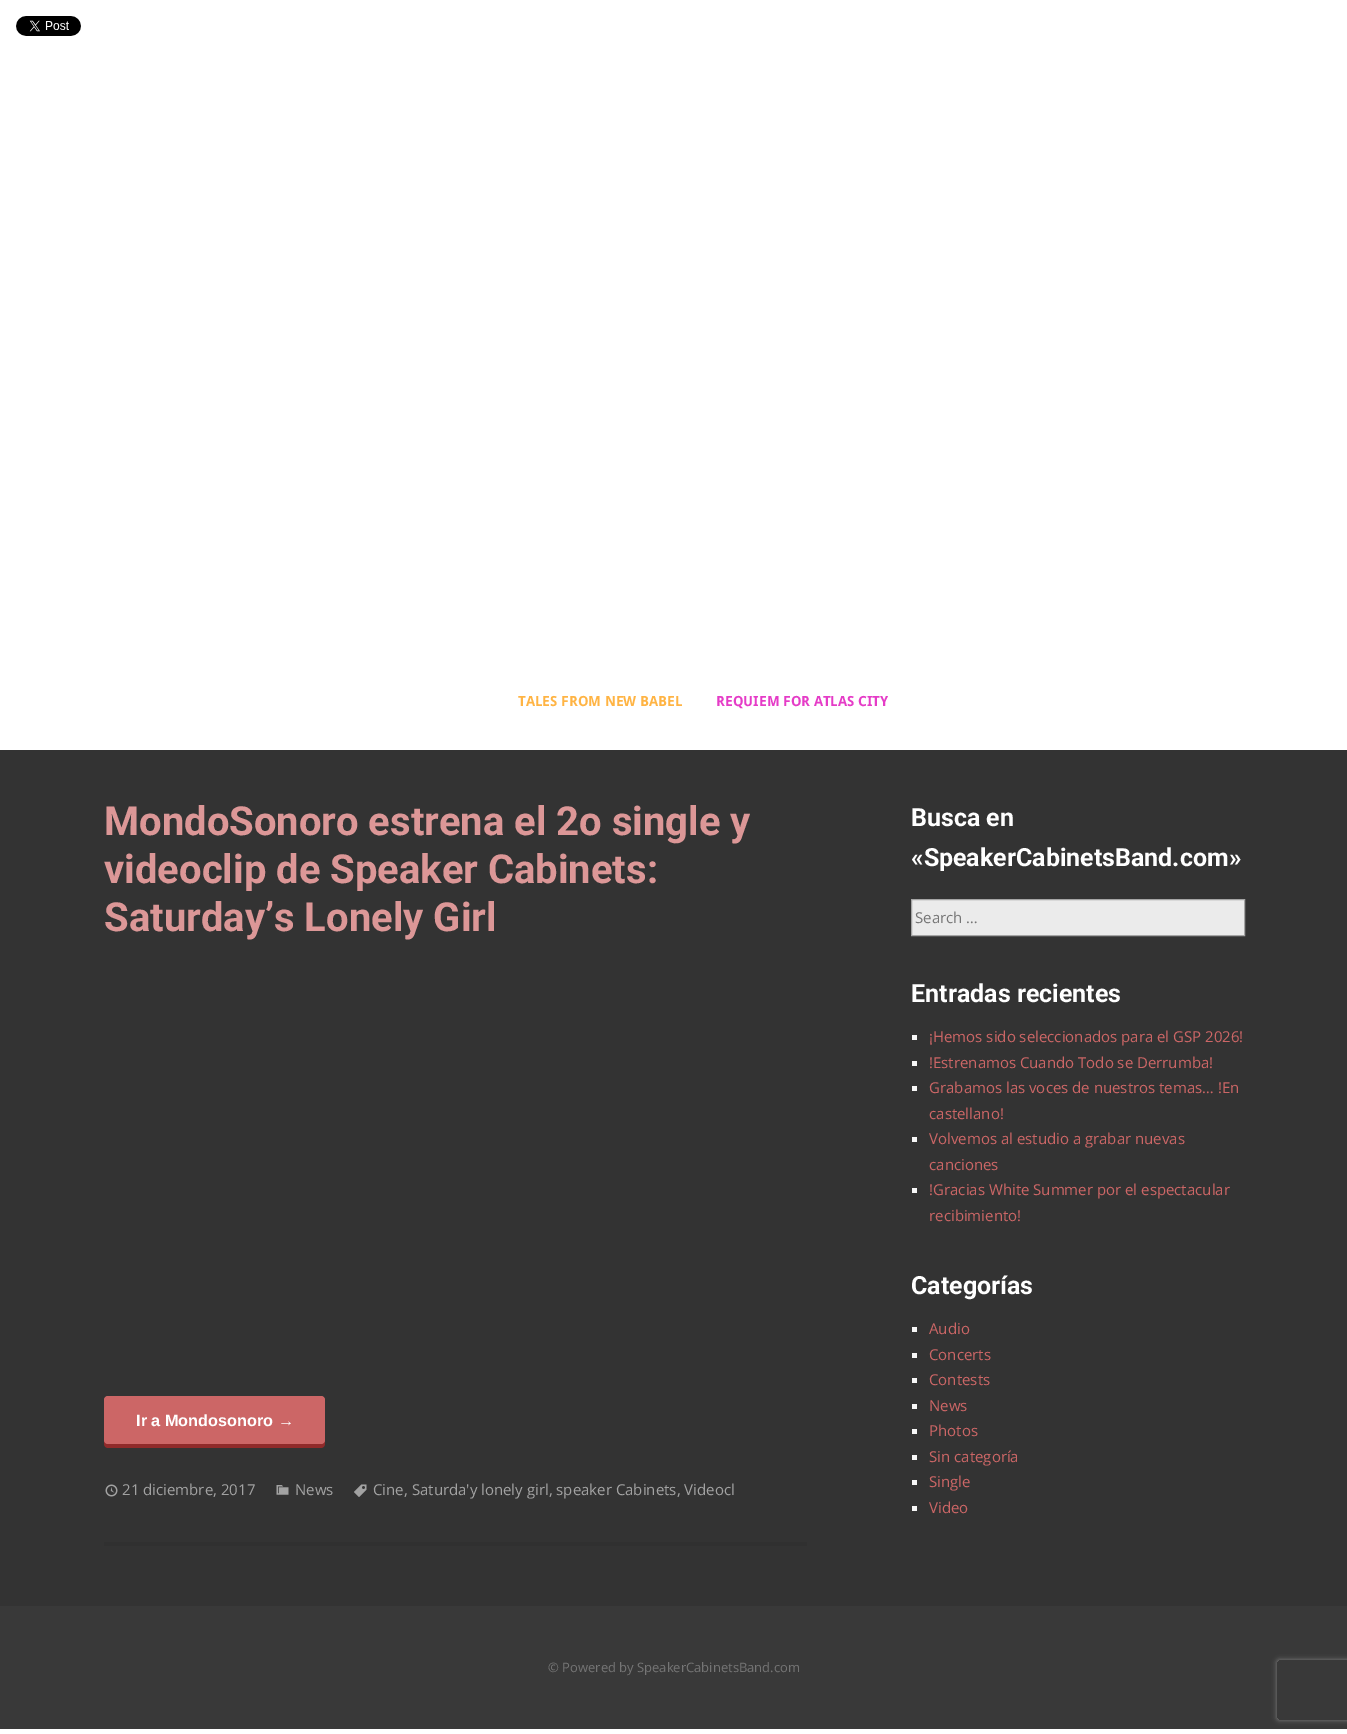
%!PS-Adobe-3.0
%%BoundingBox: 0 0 1347 1734
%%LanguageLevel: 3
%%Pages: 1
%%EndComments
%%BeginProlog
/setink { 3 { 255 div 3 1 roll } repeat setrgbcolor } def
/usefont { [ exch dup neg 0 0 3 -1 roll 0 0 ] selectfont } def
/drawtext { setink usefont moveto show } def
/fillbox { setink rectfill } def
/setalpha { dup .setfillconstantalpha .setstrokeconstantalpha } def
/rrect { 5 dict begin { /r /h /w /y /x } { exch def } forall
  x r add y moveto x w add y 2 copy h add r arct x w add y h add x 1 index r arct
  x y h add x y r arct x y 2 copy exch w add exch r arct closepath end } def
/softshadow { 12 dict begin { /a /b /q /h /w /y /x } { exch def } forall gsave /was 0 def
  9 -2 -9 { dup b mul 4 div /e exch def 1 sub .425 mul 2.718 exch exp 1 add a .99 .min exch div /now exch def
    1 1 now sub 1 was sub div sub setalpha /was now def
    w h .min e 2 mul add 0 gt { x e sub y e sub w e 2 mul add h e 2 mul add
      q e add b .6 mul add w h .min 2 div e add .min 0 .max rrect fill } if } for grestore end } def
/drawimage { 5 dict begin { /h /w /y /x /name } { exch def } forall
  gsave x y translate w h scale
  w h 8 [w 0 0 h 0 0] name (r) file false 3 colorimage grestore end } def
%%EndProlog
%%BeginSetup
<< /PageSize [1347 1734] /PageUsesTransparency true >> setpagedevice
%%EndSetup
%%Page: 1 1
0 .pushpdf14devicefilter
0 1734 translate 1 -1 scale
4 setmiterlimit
0 0 1347 1734 255 255 255 fillbox
(assets/img1.rgb) 16 16 65 20 drawimage
(TALES FROM NEW BABEL) 518 706 /DroidSans-Bold 14 255 180 68 drawtext
(REQUIEM FOR ATLAS CITY) 716 706 /DroidSans-Bold 14 229 60 199 drawtext
0 750 1347 856 51 51 51 fillbox
104 1542 703 4 48 48 48 fillbox
(MondoSonoro estrena el 2o single y) 104 835 /Roboto-Bold 40 220 151 151 drawtext
(videoclip de Speaker Cabinets:) 104 883 /Roboto-Bold 40 220 151 151 drawtext
(Saturday’s Lonely Girl) 104 931 /Roboto-Bold 40 220 151 151 drawtext
144 42 42 setink
104 1440 moveto 104 1444 lineto 104 1446 106 1448 108 1448 curveto 321 1448 lineto 323 1448 325 1446 325 1444 curveto 325 1440 lineto 325 1442 323 1444 321 1444 curveto 108 1444 lineto 106 1444 104 1442 104 1440 curveto closepath fill
204 102 102 setink
104 1396 221 48 4 rrect fill
(Ir a Mondosonoro →) 136 1426 /LiberationSans-Bold 16.25 255 255 255 drawtext
(assets/img2.rgb) 105 1484 13 13 drawimage
(21 diciembre, 2017) 122 1495 /OpenSans-Regular 15 162 162 162 drawtext
(assets/img3.rgb) 276 1485 13 10 drawimage
(News) 295 1495 /OpenSans-Regular 15 162 162 162 drawtext
(assets/img4.rgb) 354 1484 13 13 drawimage
(Cine, Saturda'y lonely girl, speaker Cabinets, Videocl) 373 1495 /OpenSans-Regular 15 162 162 162 drawtext
(Busca en) 911 826 /Roboto-Bold 25 255 255 255 drawtext
(«SpeakerCabinetsBand.com») 911 866 /Roboto-Bold 25 255 255 255 drawtext
235 235 235 setink
911.5 899.5 moveto 1244.5 899.5 lineto 1244.5 935.5 lineto 911.5 935.5 lineto closepath gsave fill grestore
165 165 165 setink
stroke
(Search …) 915 923 /OpenSans-Regular 15 117 117 117 drawtext
(Entradas recientes) 911 1002 /Roboto-Bold 25 255 255 255 drawtext
912 1035 5 5 247 247 247 fillbox
(¡Hemos sido seleccionados para el GSP 2026!) 929 1042 /OpenSans-Regular 15 204 102 102 drawtext
912 1061 5 5 247 247 247 fillbox
(!Estrenamos Cuando Todo se Derrumba!) 929 1068 /OpenSans-Regular 15 204 102 102 drawtext
912 1086 5 5 247 247 247 fillbox
(Grabamos las voces de nuestros temas… !En) 929 1093 /OpenSans-Regular 15 204 102 102 drawtext
(castellano!) 929 1119 /OpenSans-Regular 15 204 102 102 drawtext
912 1137 5 5 247 247 247 fillbox
(Volvemos al estudio a grabar nuevas) 929 1144 /OpenSans-Regular 15 204 102 102 drawtext
(canciones) 929 1170 /OpenSans-Regular 15 204 102 102 drawtext
912 1188 5 5 247 247 247 fillbox
(!Gracias White Summer por el espectacular) 929 1195 /OpenSans-Regular 15 204 102 102 drawtext
(recibimiento!) 929 1221 /OpenSans-Regular 15 204 102 102 drawtext
(Categorías) 911 1294 /Roboto-Bold 25 255 255 255 drawtext
912 1327 5 5 247 247 247 fillbox
(Audio) 929 1334 /OpenSans-Regular 15 204 102 102 drawtext
912 1353 5 5 247 247 247 fillbox
(Concerts) 929 1360 /OpenSans-Regular 15 204 102 102 drawtext
912 1378 5 5 247 247 247 fillbox
(Contests) 929 1385 /OpenSans-Regular 15 204 102 102 drawtext
912 1404 5 5 247 247 247 fillbox
(News) 929 1411 /OpenSans-Regular 15 204 102 102 drawtext
912 1429 5 5 247 247 247 fillbox
(Photos) 929 1436 /OpenSans-Regular 15 204 102 102 drawtext
912 1455 5 5 247 247 247 fillbox
(Sin categoría) 929 1462 /OpenSans-Regular 15 204 102 102 drawtext
912 1480 5 5 247 247 247 fillbox
(Single) 929 1487 /OpenSans-Regular 15 204 102 102 drawtext
912 1506 5 5 247 247 247 fillbox
(Video) 929 1513 /OpenSans-Regular 15 204 102 102 drawtext
0 1606 1347 123 57 57 57 fillbox
(© Powered by SpeakerCabinetsBand.com) 548 1672 /OpenSans-Regular 13 117 117 117 drawtext
gsave
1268 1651 moveto 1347 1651 lineto 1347 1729 lineto 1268 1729 lineto closepath 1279 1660 moveto 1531 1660 lineto 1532 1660 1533 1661 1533 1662 curveto 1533 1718 lineto 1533 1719 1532 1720 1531 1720 curveto 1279 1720 lineto 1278 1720 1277 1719 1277 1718 curveto 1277 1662 lineto 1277 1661 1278 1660 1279 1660 curveto closepath eoclip newpath
128 128 128 setink
1277 1660 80 60 2 2.5 1 softshadow
grestore
.poppdf14devicefilter showpage
%%EOF
